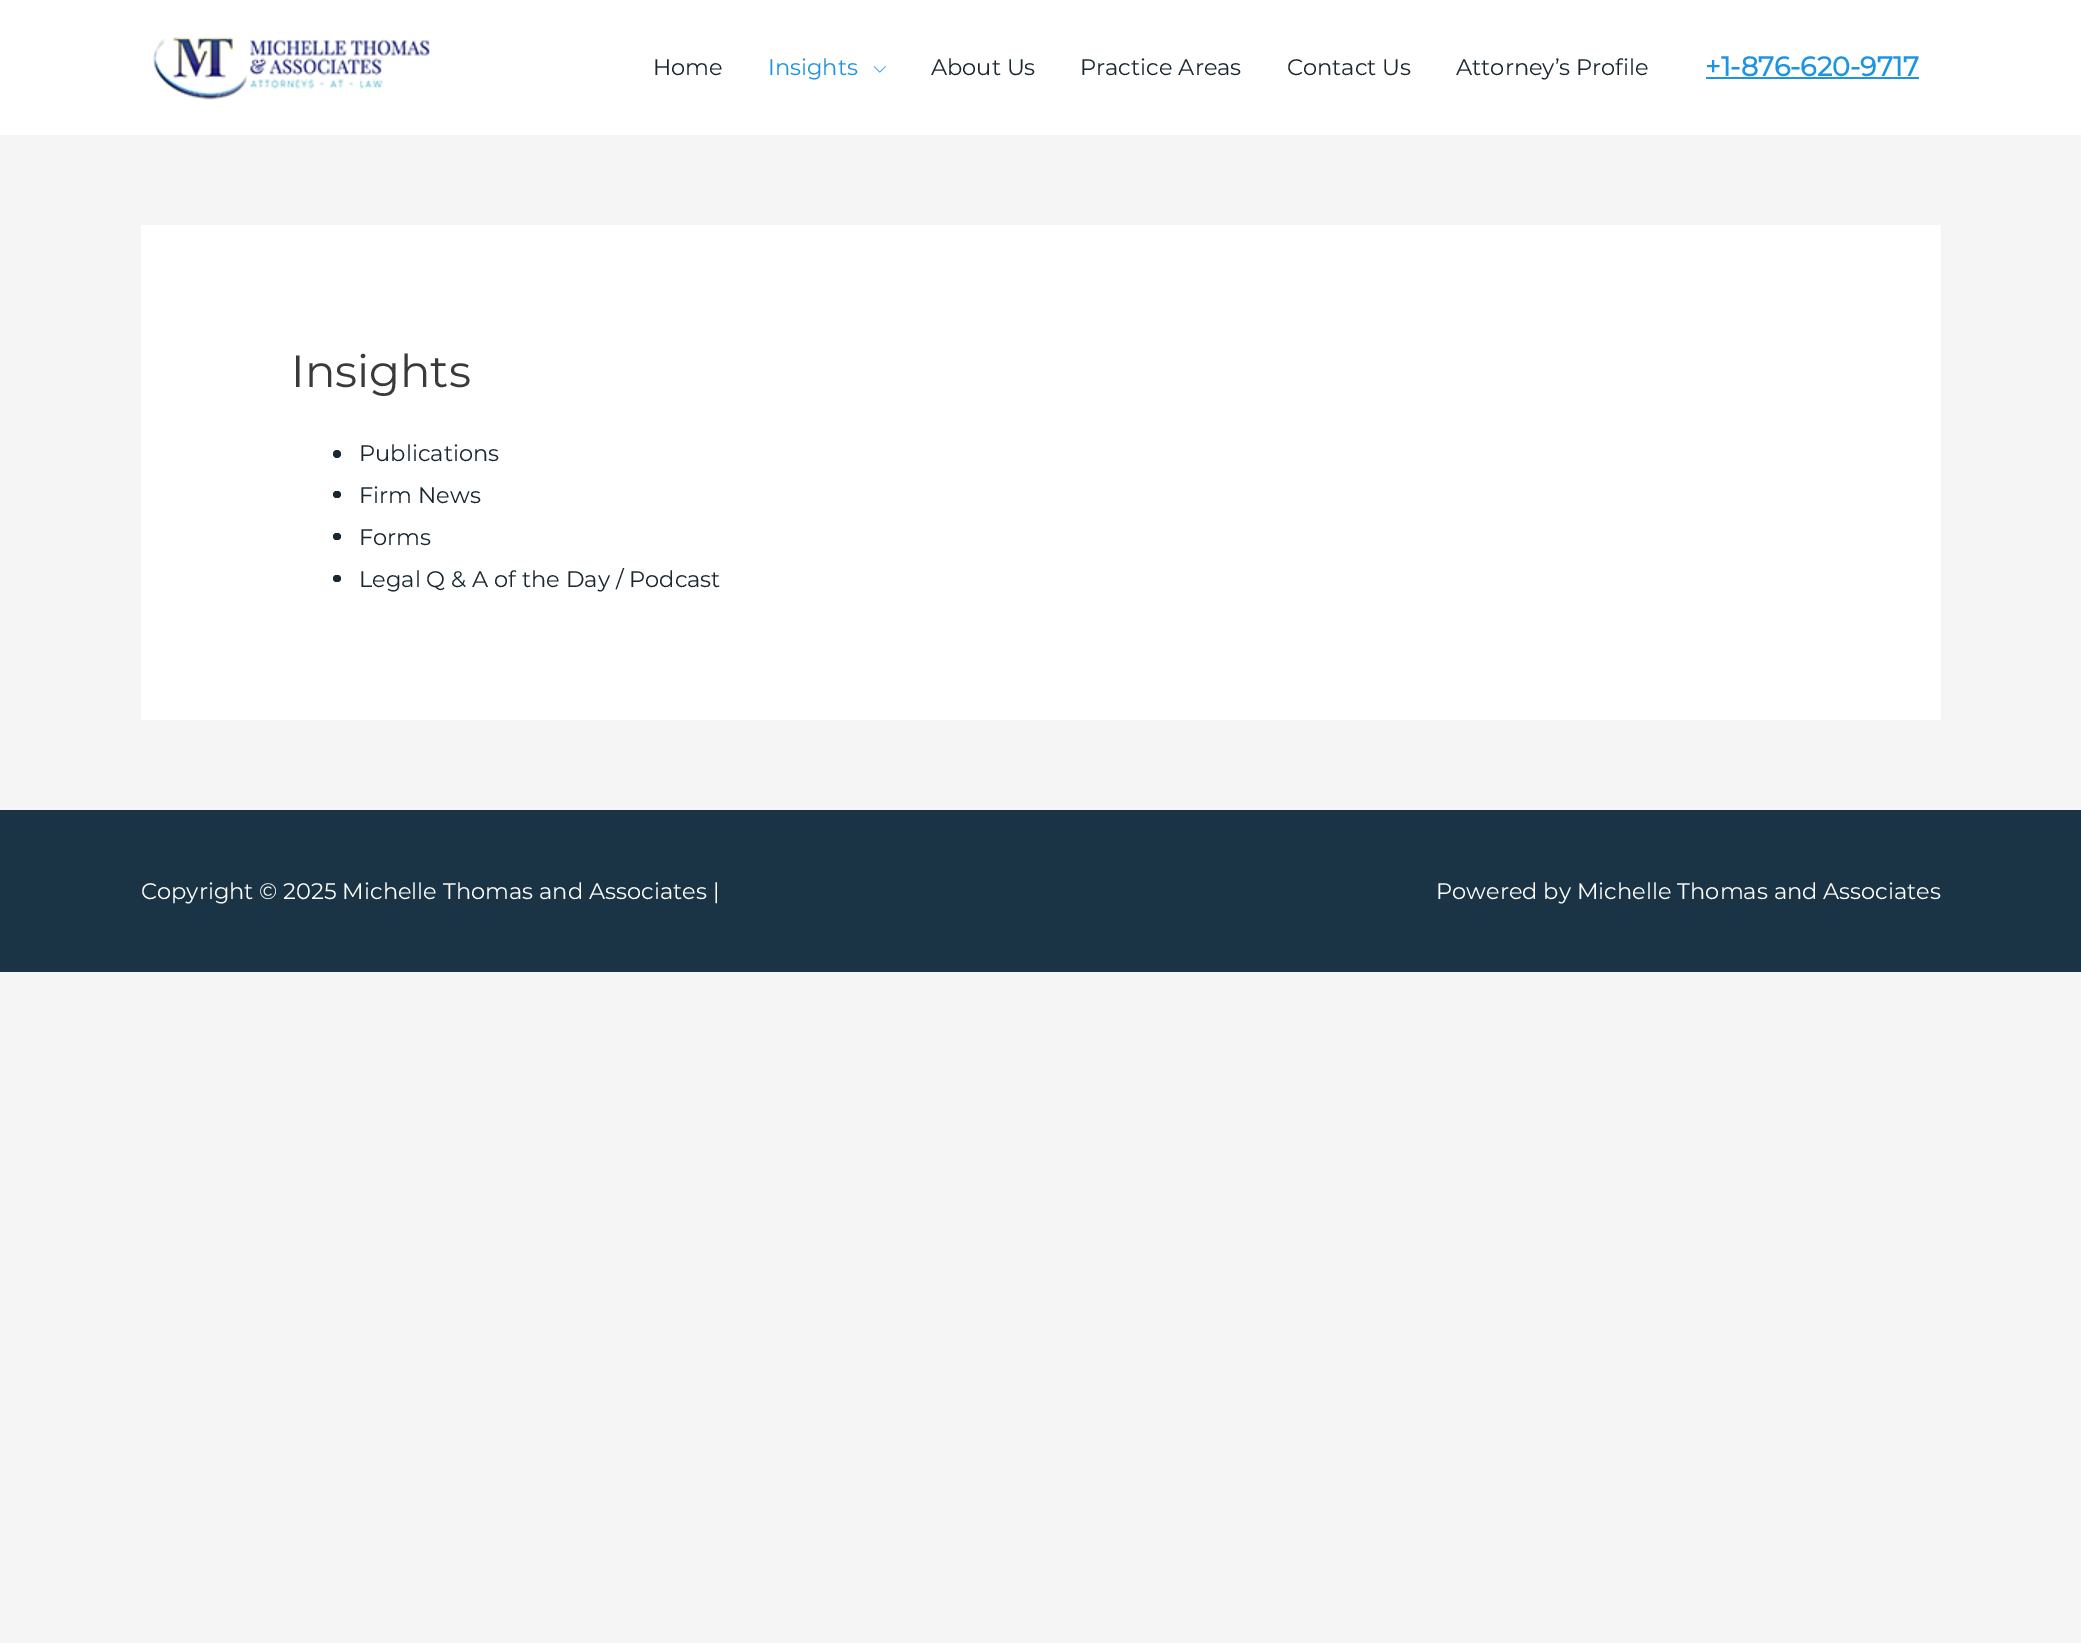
%!PS-Adobe-3.0
%%BoundingBox: 0 0 2081 1643
%%LanguageLevel: 3
%%Pages: 1
%%EndComments
%%BeginProlog
/setink { 3 { 255 div 3 1 roll } repeat setrgbcolor } def
/usefont { [ exch dup neg 0 0 3 -1 roll 0 0 ] selectfont } def
/drawtext { setink usefont moveto show } def
/fillbox { setink rectfill } def
/disc { newpath 0 360 arc closepath } def
/rrect { 5 dict begin { /r /h /w /y /x } { exch def } forall
  x r add y moveto x w add y 2 copy h add r arct x w add y h add x 1 index r arct
  x y h add x y r arct x y 2 copy exch w add exch r arct closepath end } def
/drawimage { 5 dict begin { /h /w /y /x /name } { exch def } forall
  gsave x y translate w h scale
  w h 8 [w 0 0 h 0 0] name (r) file false 3 colorimage grestore end } def
%%EndProlog
%%BeginSetup
<< /PageSize [2081 1643] >> setpagedevice
%%EndSetup
%%Page: 1 1
0 1643 translate 1 -1 scale
4 setmiterlimit
0 0 2081 1643 245 245 245 fillbox
0 0 2081 135 255 255 255 fillbox
(assets/img1.rgb) 153 37 277 63 drawimage
(Home) 653 75 /Montserrat-Thin 22.5 25 39 48 drawtext
(Insights) 768 75 /Montserrat-Thin 22.5 28 147 227 drawtext
(assets/img2.rgb) 873 66 13 7 drawimage
(About Us) 931 75 /Montserrat-Thin 22.5 25 39 48 drawtext
(Practice Areas) 1080 75 /Montserrat-Thin 22.5 25 39 48 drawtext
(Contact Us) 1287 75 /Montserrat-Thin 22.5 25 39 48 drawtext
(Attorney’s Profile) 1456 75 /Montserrat-Thin 22.5 25 39 48 drawtext
(+1-876-620-9717) 1705 76 /Montserrat-Bold 27 28 147 227 drawtext
1706 77 213 2 28 147 227 fillbox
141 225 1800 495 255 255 255 fillbox
(Insights) 291 387 /Montserrat-Thin 45 58 58 58 drawtext
25 39 48 setink
337 454 4 disc fill
(Publications) 359 461 /Montserrat-Thin 22.5 25 39 48 drawtext
333 491 8 7 3.5 rrect fill
(Firm News) 359 503 /Montserrat-Thin 22.5 25 39 48 drawtext
333 533 8 7 3.5 rrect fill
(Forms) 359 545 /Montserrat-Thin 22.5 25 39 48 drawtext
333 575 8 7 3.5 rrect fill
(Legal Q & A of the Day / Podcast) 359 587 /Montserrat-Thin 22.5 25 39 48 drawtext
0 810 2081 162 26 52 70 fillbox
(Copyright © 2025 Michelle Thomas and Associates |) 141 899 /Montserrat-Thin 22.5 255 255 255 drawtext
(Powered by Michelle Thomas and Associates) 1436 899 /Montserrat-Thin 22.5 255 255 255 drawtext
showpage
%%EOF
